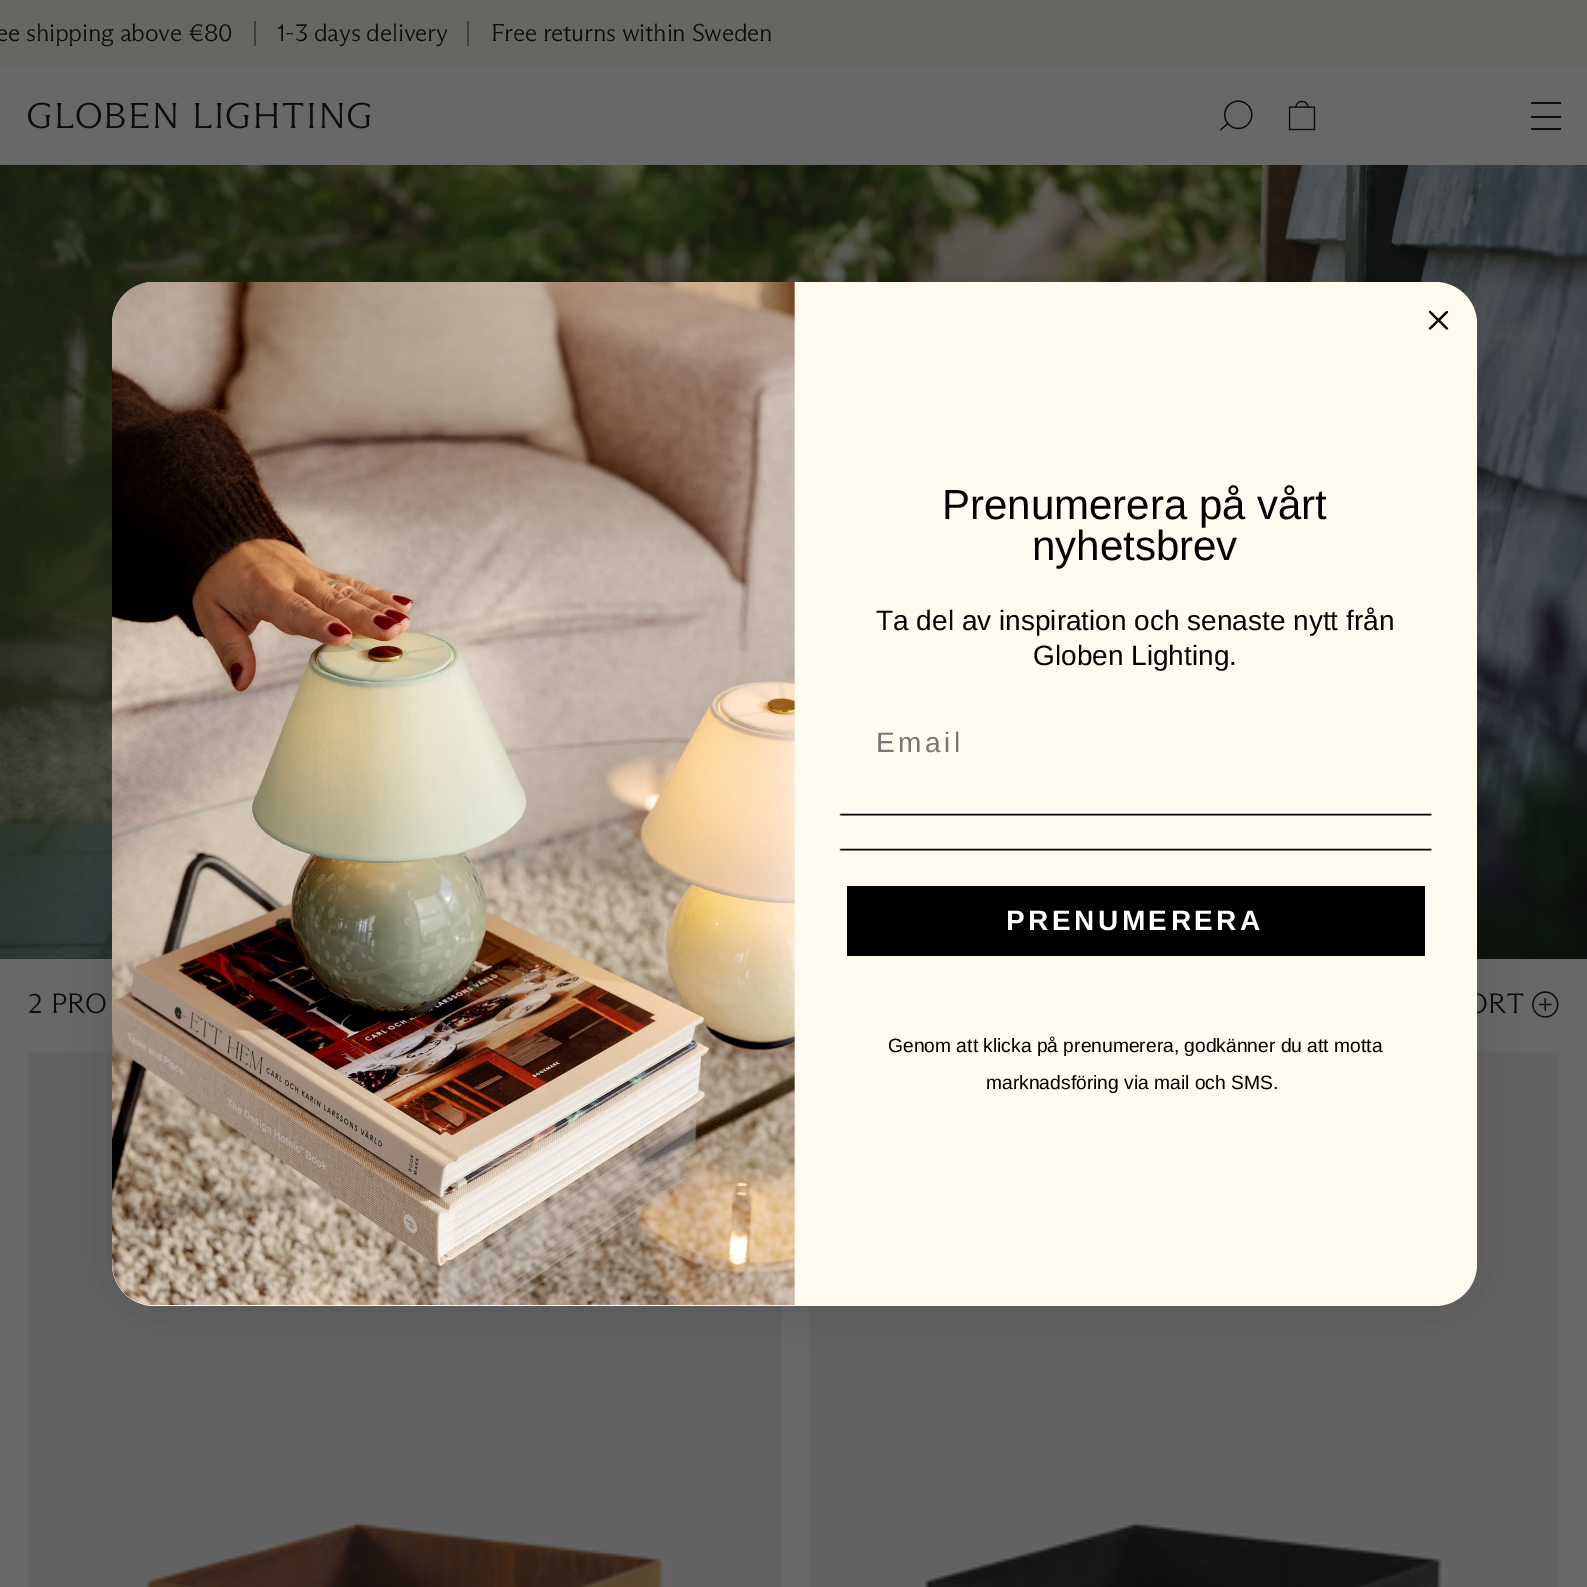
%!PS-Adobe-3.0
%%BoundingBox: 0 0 1587 1587
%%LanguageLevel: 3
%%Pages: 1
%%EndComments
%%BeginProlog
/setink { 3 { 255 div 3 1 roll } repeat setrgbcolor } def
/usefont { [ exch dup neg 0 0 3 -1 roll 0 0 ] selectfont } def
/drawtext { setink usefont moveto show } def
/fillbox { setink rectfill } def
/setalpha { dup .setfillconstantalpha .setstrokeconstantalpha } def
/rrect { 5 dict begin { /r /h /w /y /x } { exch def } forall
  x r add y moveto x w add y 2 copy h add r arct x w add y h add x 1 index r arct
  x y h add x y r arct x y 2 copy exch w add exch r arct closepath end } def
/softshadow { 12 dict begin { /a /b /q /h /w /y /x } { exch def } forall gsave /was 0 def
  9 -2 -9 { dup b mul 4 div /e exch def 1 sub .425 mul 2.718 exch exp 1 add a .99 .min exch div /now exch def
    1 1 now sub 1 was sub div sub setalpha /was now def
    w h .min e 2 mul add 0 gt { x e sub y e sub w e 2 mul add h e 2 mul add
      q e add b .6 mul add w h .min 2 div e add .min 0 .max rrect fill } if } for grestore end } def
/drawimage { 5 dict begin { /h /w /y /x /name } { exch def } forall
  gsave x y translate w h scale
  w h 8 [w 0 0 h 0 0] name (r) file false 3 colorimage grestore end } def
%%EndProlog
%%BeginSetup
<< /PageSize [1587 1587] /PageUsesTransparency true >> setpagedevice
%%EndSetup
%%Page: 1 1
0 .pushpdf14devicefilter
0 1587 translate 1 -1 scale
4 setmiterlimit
0 0 1587 1587 104 104 104 fillbox
0 0 1587 67 104 102 98 fillbox
/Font-Light 24.5 usefont
12 12 12 setink
-4 41 moveto -0.25 0 (ee shipping above €80) ashow
254 21 2 25 64 64 61 fillbox
12 12 12 setink
277 41 moveto -0.25 0 (1-3 days delivery) ashow
467 21 2 25 64 64 61 fillbox
12 12 12 setink
491 41 moveto -0.25 0 (Free returns within Sweden) ashow
(assets/img1.rgb) 28 102 343 27 drawimage
(assets/img2.rgb) 1219 100 34 31 drawimage
(assets/img3.rgb) 1288 100 28 31 drawimage
1531 102 30 2 12 12 12 fillbox
1531 116 30 2 12 12 12 fillbox
1531 128 30 2 12 12 12 fillbox
(assets/img4.rgb) 0 165 1587 794 drawimage
/Font-Light 28 usefont
28 1013 moveto 0.5 0 (2 PRO) ashow
1466 1013 moveto 0.5 0 (ORT) ashow
(assets/img5.rgb) 1532 991 27 27 drawimage
28 1052 753 535 99 99 99 fillbox
(assets/img6.rgb) 144 1520 521 67 drawimage
809 1052 750 535 99 99 99 fillbox
(assets/img7.rgb) 922 1520 522 67 drawimage
0 0 0 setink
112 282 1365 1024 42 26 0.15 softshadow
255 251 238 setink
112 282 1365 1024 42 rrect fill
0 0 0 setink
2.1 setlinewidth
1 setlinecap
1 setlinejoin
1430 312 moveto 1447 328.5 lineto 1430 328.5 moveto 1447 312 lineto closepath stroke
(assets/img8.rgb) 112 282 683 1023 drawimage
(Prenumerera på vårt) 942 519 /LiberationSans-Regular 42 0 0 0 drawtext
(nyhetsbrev) 1032 560 /LiberationSans-Regular 42 0 0 0 drawtext
(Ta del av inspiration och senaste nytt från) 876 630 /LiberationSans-Regular 28 0 0 0 drawtext
(Globen Lighting.) 1033 665 /LiberationSans-Regular 28 0 0 0 drawtext
118 118 118 setink
876 752 moveto 3.5 0 (Email) ashow
(assets/img9.rgb) 839 813 593 3 drawimage
(assets/img9.rgb) 839 848 593 3 drawimage
847 886 578 70 0 0 0 fillbox
/LiberationSans-Bold 28 usefont
255 255 255 setink
1006 930 moveto 3.5 0 (PRENUMERERA) ashow
(Genom att klicka på prenumerera, godkänner du att motta) 888 1052 /LiberationSans-Regular 19.25 0 0 0 drawtext
(marknadsföring via mail och SMS.) 986 1089 /LiberationSans-Regular 19.25 0 0 0 drawtext
.poppdf14devicefilter showpage
%%EOF
